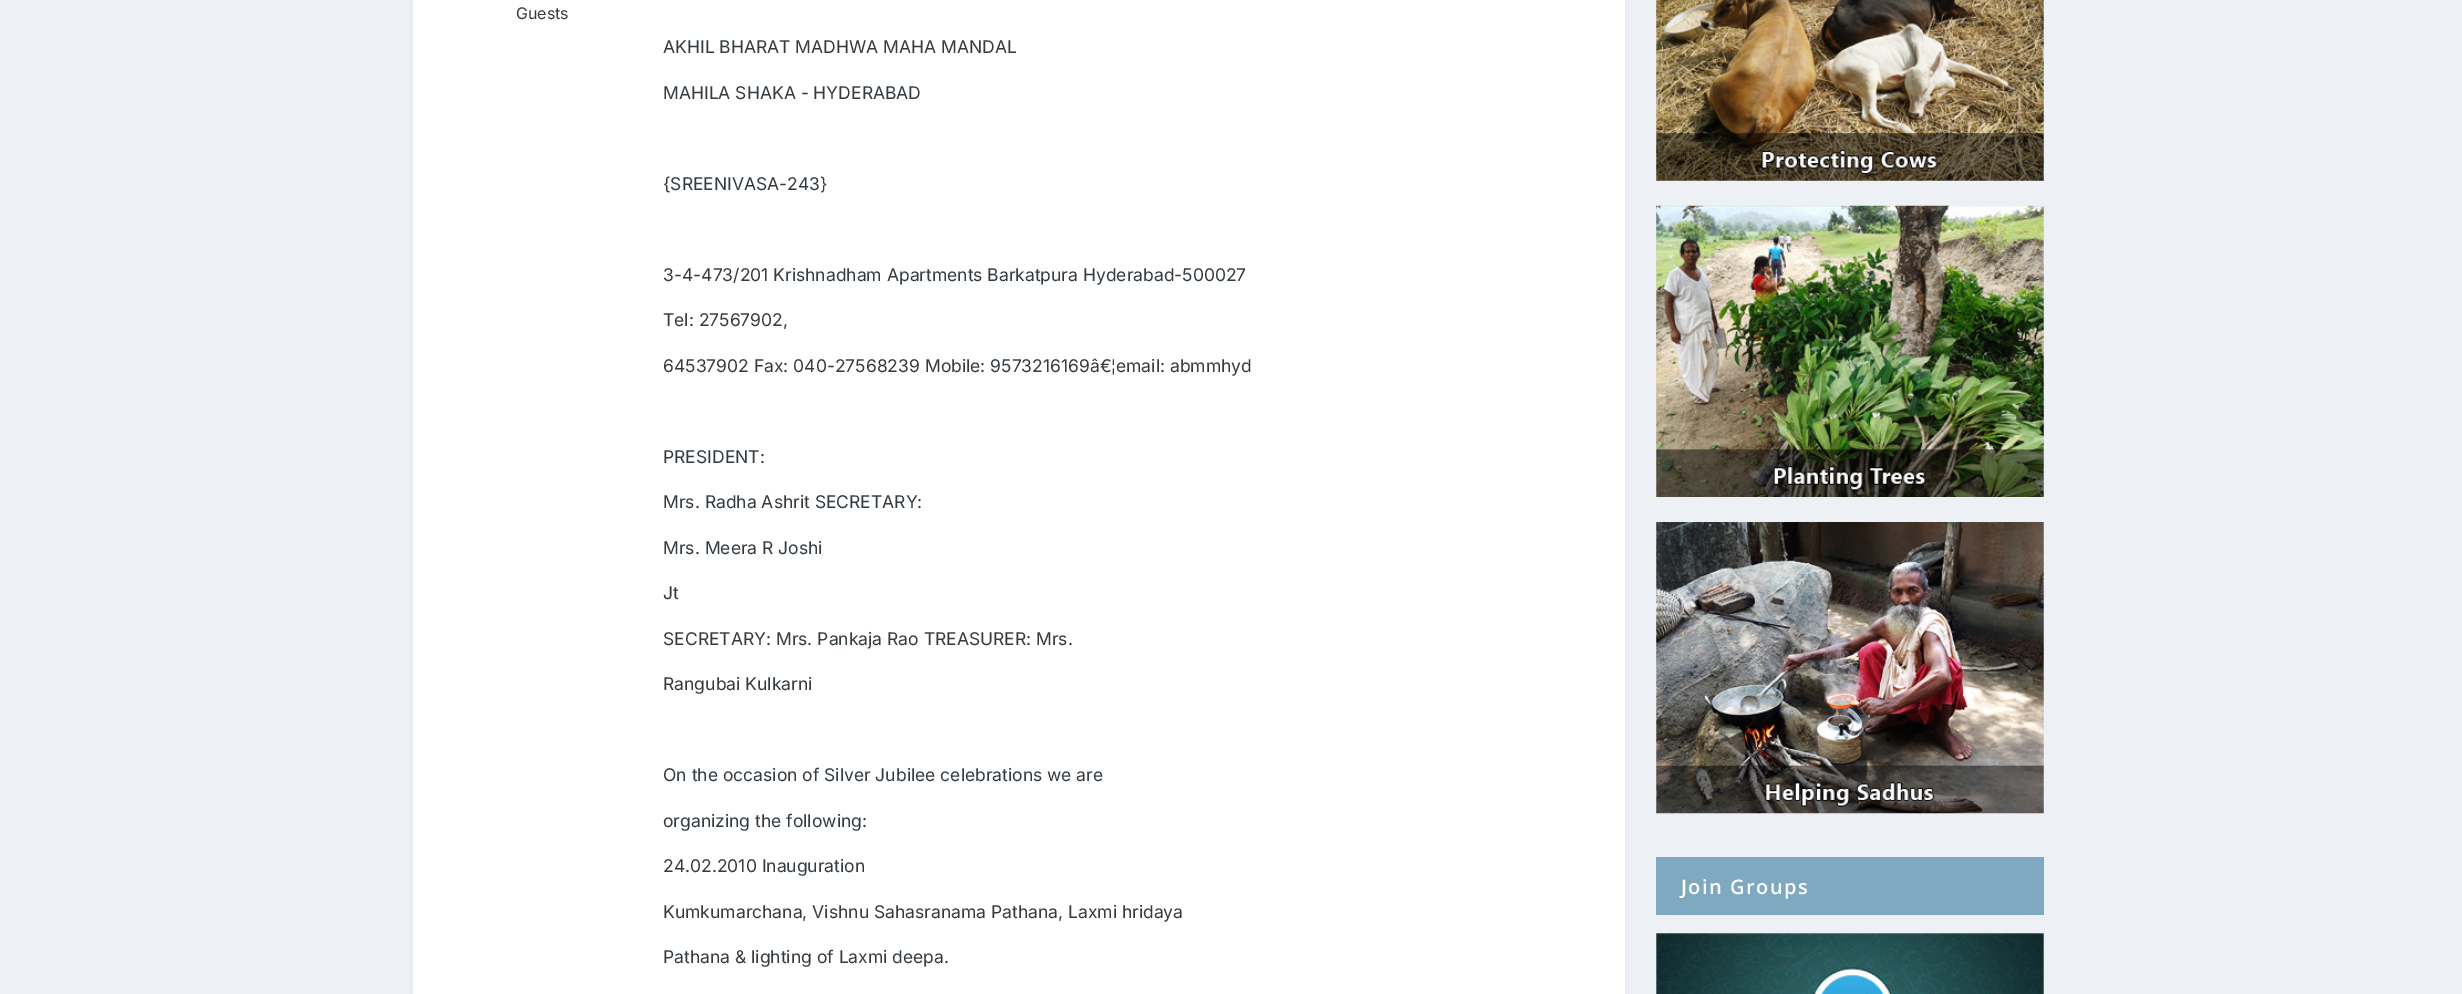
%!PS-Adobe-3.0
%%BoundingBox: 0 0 2462 994
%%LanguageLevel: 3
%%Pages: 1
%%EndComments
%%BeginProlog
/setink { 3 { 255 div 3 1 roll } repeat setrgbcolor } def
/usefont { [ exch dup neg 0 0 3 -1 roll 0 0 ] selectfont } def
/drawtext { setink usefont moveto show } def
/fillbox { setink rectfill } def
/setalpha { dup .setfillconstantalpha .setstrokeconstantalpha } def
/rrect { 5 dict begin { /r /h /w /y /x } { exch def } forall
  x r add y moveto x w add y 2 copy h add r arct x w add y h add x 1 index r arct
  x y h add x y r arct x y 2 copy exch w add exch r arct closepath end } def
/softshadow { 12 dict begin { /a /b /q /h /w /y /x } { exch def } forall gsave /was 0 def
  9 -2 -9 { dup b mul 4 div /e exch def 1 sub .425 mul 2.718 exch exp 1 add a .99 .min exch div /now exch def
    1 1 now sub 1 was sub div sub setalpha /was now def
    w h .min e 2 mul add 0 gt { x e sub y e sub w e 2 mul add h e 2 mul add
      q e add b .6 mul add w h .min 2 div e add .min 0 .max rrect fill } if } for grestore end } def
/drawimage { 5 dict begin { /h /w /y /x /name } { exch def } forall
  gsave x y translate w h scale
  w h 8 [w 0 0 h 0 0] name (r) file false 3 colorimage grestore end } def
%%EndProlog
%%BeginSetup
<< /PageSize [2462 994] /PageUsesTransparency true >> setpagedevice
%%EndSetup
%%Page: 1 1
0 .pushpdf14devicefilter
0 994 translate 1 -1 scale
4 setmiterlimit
0 0 2462 994 237 240 244 fillbox
45 55 72 setink
414 -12 1210 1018 4 2.5 0.1 softshadow
413 0 1212 994 255 255 255 fillbox
(Guests) 516 19 /Inter-Regular 16 53 60 65 drawtext
(AKHIL BHARAT MADHWA MAHA MANDAL) 663 53 /Inter-Regular 17.5 53 60 65 drawtext
(MAHILA SHAKA - HYDERABAD) 663 99 /Inter-Regular 17.5 53 60 65 drawtext
({SREENIVASA-243}) 663 190 /Inter-Regular 17.5 53 60 65 drawtext
(3-4-473/201 Krishnadham Apartments Barkatpura Hyderabad-500027) 663 281 /Inter-Regular 17.5 53 60 65 drawtext
(Tel: 27567902,) 663 326 /Inter-Regular 17.5 53 60 65 drawtext
(64537902 Fax: 040-27568239 Mobile: 9573216169â€¦email: abmmhyd) 663 372 /Inter-Regular 17.5 53 60 65 drawtext
(PRESIDENT:) 663 463 /Inter-Regular 17.5 53 60 65 drawtext
(Mrs. Radha Ashrit SECRETARY:) 663 508 /Inter-Regular 17.5 53 60 65 drawtext
(Mrs. Meera R Joshi) 663 554 /Inter-Regular 17.5 53 60 65 drawtext
(Jt) 663 599 /Inter-Regular 17.5 53 60 65 drawtext
(SECRETARY: Mrs. Pankaja Rao TREASURER: Mrs.) 663 645 /Inter-Regular 17.5 53 60 65 drawtext
(Rangubai Kulkarni) 663 690 /Inter-Regular 17.5 53 60 65 drawtext
(On the occasion of Silver Jubilee celebrations we are) 663 781 /Inter-Regular 17.5 53 60 65 drawtext
(organizing the following:) 663 827 /Inter-Regular 17.5 53 60 65 drawtext
(24.02.2010 Inauguration) 663 872 /Inter-Regular 17.5 53 60 65 drawtext
(Kumkumarchana, Vishnu Sahasranama Pathana, Laxmi hridaya) 663 918 /Inter-Regular 17.5 53 60 65 drawtext
(Pathana & lighting of Laxmi deepa.) 663 963 /Inter-Regular 17.5 53 60 65 drawtext
(assets/img1.rgb) 1656 0 388 181 drawimage
(assets/img2.rgb) 1656 205 388 292 drawimage
(assets/img3.rgb) 1656 522 388 292 drawimage
1656 857 388 58 126 169 192 fillbox
/OpenSans-SemiBold 20 usefont
255 255 255 setink
1681 894 moveto 1.5 0 (Join Groups) ashow
(assets/img4.rgb) 1656 933 388 61 drawimage
.poppdf14devicefilter showpage
%%EOF
